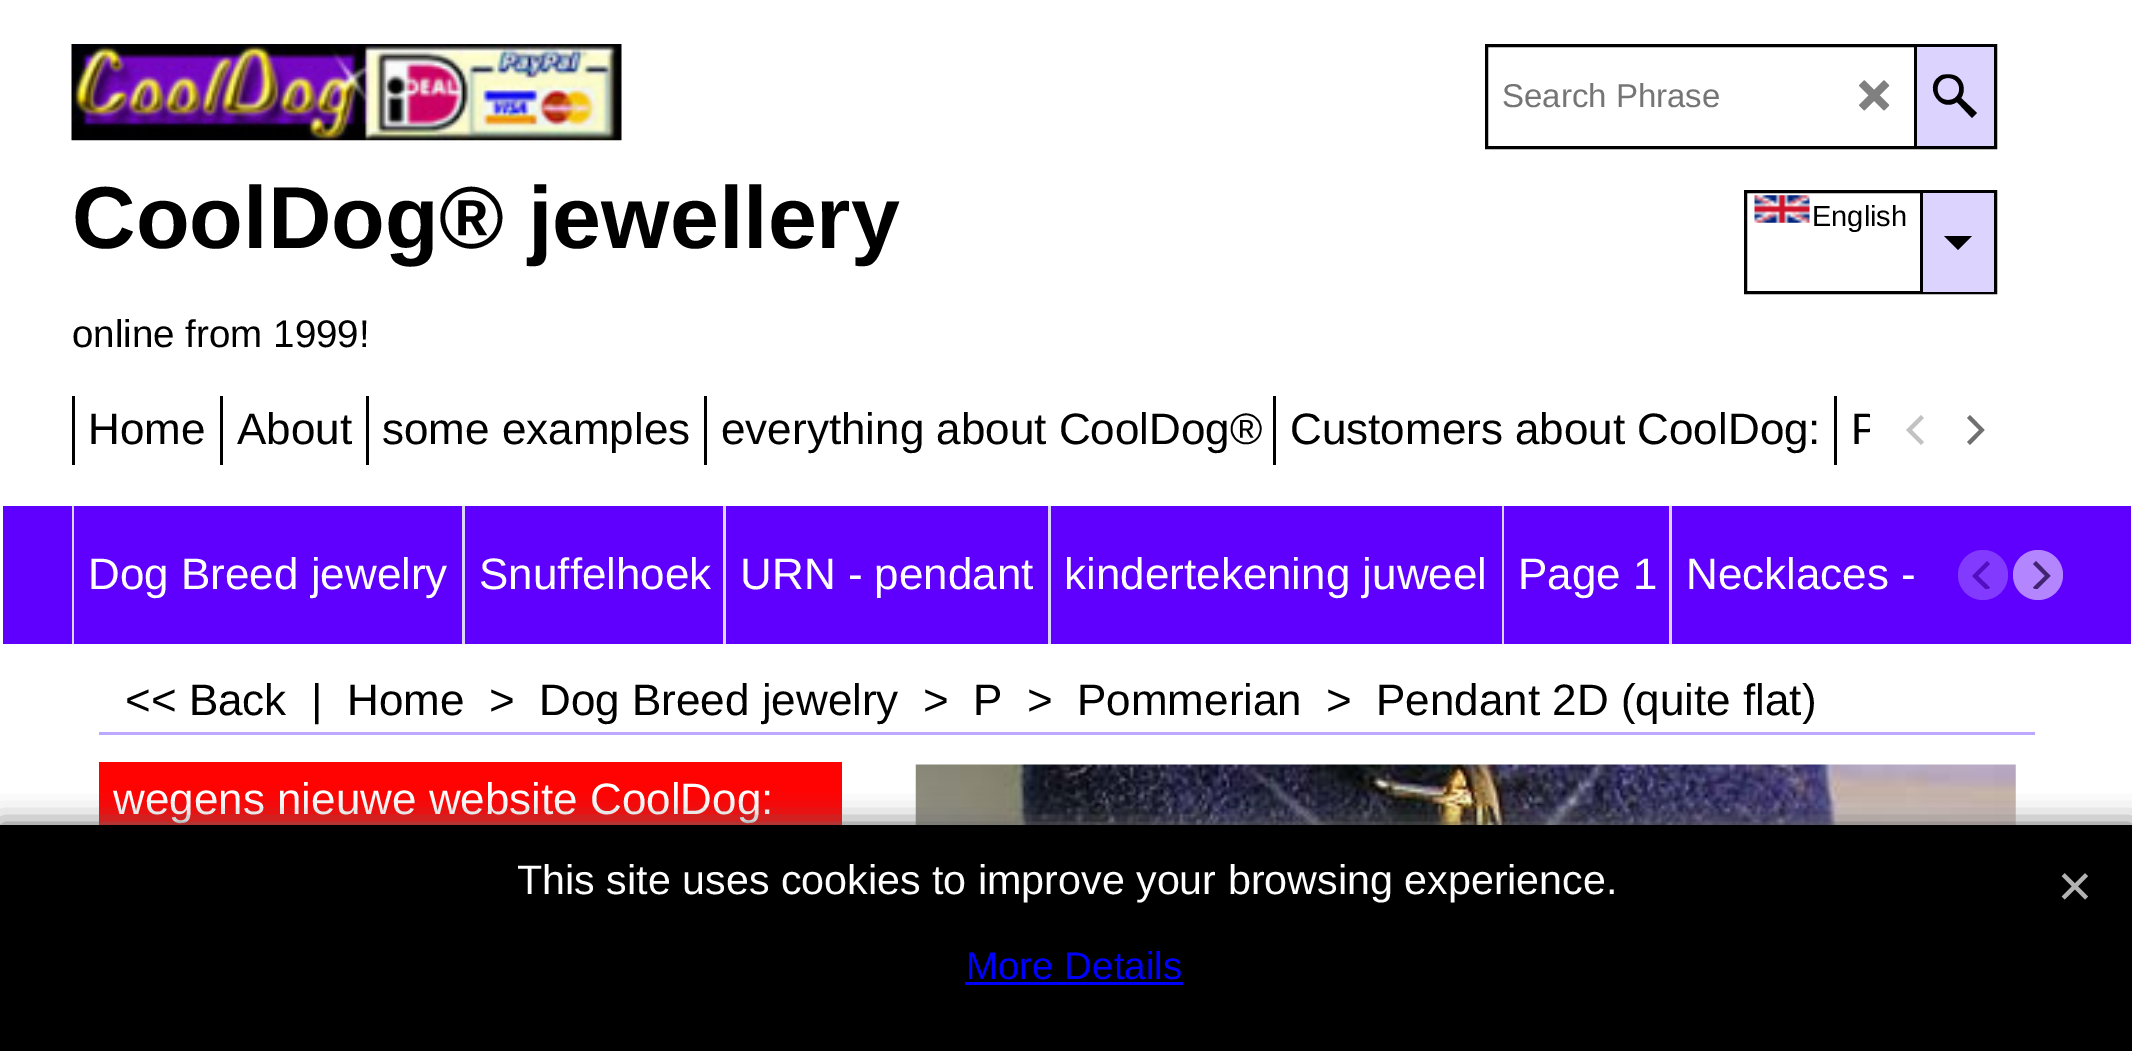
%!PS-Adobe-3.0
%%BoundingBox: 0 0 2132 1051
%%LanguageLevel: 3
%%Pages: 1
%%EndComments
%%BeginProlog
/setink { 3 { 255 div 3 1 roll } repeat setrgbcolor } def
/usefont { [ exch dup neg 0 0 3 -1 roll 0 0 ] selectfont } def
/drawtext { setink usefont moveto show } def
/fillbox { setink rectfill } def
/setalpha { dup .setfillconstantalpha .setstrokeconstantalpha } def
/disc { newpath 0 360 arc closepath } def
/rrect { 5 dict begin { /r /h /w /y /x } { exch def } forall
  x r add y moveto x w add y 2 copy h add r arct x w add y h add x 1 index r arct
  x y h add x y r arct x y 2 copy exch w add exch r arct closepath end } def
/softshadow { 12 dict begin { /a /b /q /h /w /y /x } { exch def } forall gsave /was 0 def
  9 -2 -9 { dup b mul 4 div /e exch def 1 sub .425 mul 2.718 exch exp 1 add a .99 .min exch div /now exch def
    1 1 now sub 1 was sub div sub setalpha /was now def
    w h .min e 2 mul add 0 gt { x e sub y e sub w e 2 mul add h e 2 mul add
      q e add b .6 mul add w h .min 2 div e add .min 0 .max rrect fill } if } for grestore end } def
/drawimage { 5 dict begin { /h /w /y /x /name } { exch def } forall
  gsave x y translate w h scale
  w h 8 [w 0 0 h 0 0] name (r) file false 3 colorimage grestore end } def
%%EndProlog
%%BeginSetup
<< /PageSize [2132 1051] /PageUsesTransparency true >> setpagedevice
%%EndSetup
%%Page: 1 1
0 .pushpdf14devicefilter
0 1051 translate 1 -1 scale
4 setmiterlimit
0 0 2132 1051 255 255 255 fillbox
0 0 0 setink
3 setlinewidth
1486.5 45.5 509 102 rectstroke
(Search Phrase) 1502 107 /LiberationSans-Regular 33 117 117 117 drawtext
(assets/img1.rgb) 1859 80 31 31 drawimage
1917 47 77 99 221 211 255 fillbox
1914 47 3 99 0 0 0 fillbox
1961 98 moveto 1966 91 1964 80 1956 76 curveto 1952 74 1947 74 1942 75 curveto 1922 84 1939 114 1957 102 curveto 1972 118 lineto 1977 113 lineto closepath 1948 100 moveto 1934 100 1934 78 1948 78 curveto 1963 78 1963 100 1948 100 curveto closepath fill
1745.5 191.5 250 101 rectstroke
(assets/img2.rgb) 1754 195 56 28 drawimage
(English) 1812 226 /LiberationSans-Regular 29 0 0 0 drawtext
1923 193 71 99 221 211 255 fillbox
1920 193 3 99 0 0 0 fillbox
1944 236 moveto 1958 250 lineto 1972 236 lineto closepath fill
(assets/img3.rgb) 71 44 551 97 drawimage
(CoolDog® jewellery) 72 248 /LiberationSans-Bold 88 0 0 0 drawtext
(online from 1999!) 72 347 /LiberationSans-Regular 38.5 0 0 0 drawtext
72 396 3 69 0 0 0 fillbox
(Home) 88 444 /LiberationSans-Regular 44 0 0 0 drawtext
220 396 3 69 0 0 0 fillbox
(About) 237 444 /LiberationSans-Regular 44 0 0 0 drawtext
366 396 3 69 0 0 0 fillbox
(some examples) 382 444 /LiberationSans-Regular 44 0 0 0 drawtext
704 396 3 69 0 0 0 fillbox
(everything about CoolDog®) 721 444 /LiberationSans-Regular 44 0 0 0 drawtext
1273 396 3 69 0 0 0 fillbox
(Customers about CoolDog:) 1290 444 /LiberationSans-Regular 44 0 0 0 drawtext
1834 396 3 69 0 0 0 fillbox
gsave
72 396 1798 69 rectclip
(P) 1851 444 /LiberationSans-Regular 44 0 0 0 drawtext
grestore
194 194 194 setink
1906 430 moveto 1921 445 lineto 1924 442 lineto 1912 430 lineto 1924 418 lineto 1921 415 lineto closepath fill
112 112 112 setink
1984.5 430 moveto 1970 415 lineto 1967 418 lineto 1979 430 lineto 1967 442 lineto 1970 445 lineto closepath fill
3 506 2128 138 95 0 255 fillbox
72 506 2 138 221 211 255 fillbox
(Dog Breed jewelry) 88 589 /LiberationSans-Regular 44 255 255 255 drawtext
462 506 3 138 221 211 255 fillbox
(Snuffelhoek) 479 589 /LiberationSans-Regular 44 255 255 255 drawtext
723 506 3 138 221 211 255 fillbox
(URN - pendant) 740 589 /LiberationSans-Regular 44 255 255 255 drawtext
1048 506 3 138 221 211 255 fillbox
(kindertekening juweel) 1064 589 /LiberationSans-Regular 44 255 255 255 drawtext
1502 506 2 138 221 211 255 fillbox
(Page 1) 1518 589 /LiberationSans-Regular 44 255 255 255 drawtext
1669 506 3 138 221 211 255 fillbox
(Necklaces -) 1686 589 /LiberationSans-Regular 44 255 255 255 drawtext
131 58 255 setink
1983 575 25 disc fill
gsave
1969 561 28 28 rectclip
82 15 194 setink
1972 576 moveto 1987 590.5 lineto 1990 587.5 lineto 1978 576 lineto 1990 564 lineto 1987 561 lineto closepath fill
grestore
179 134 255 setink
2038 575 25 disc fill
gsave
2024 561 28 28 rectclip
64 36 112 setink
2050.5 576 moveto 2036 561 lineto 2033 564 lineto 2045 576 lineto 2033 587.5 lineto 2036 590.5 lineto closepath fill
grestore
99 732 1936 3 188 168 255 fillbox
(<< Back) 125 715 /LiberationSans-Regular 44 0 0 0 drawtext
(|) 311 715 /LiberationSans-Regular 44 0 0 0 drawtext
(Home) 347 715 /LiberationSans-Regular 44 0 0 0 drawtext
(>) 489 715 /LiberationSans-Regular 44 0 0 0 drawtext
(Dog Breed jewelry) 539 715 /LiberationSans-Regular 44 0 0 0 drawtext
(>) 923 715 /LiberationSans-Regular 44 0 0 0 drawtext
(P) 973 715 /LiberationSans-Regular 44 0 0 0 drawtext
(>) 1027 715 /LiberationSans-Regular 44 0 0 0 drawtext
(Pommerian) 1077 715 /LiberationSans-Regular 44 0 0 0 drawtext
(>) 1326 715 /LiberationSans-Regular 44 0 0 0 drawtext
(Pendant 2D \(quite flat\)) 1376 715 /LiberationSans-Regular 44 0 0 0 drawtext
99 762 743 63 255 3 3 fillbox
(wegens nieuwe website CoolDog:) 113 814 /LiberationSans-Regular 44 255 255 255 drawtext
(assets/img4.rgb) 915 764 1101 61 drawimage
102 102 102 setink
0 825 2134 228 0 14 1 softshadow
0 825 2132 226 0 0 0 fillbox
(This site uses cookies to improve your browsing experience.) 517 894 /LiberationSans-Regular 41.25 255 255 255 drawtext
(More Details) 966 979 /LiberationSans-Regular 38.5 0 0 255 drawtext
965 982 218 3 0 0 255 fillbox
(assets/img5.rgb) 2061 873 28 27 drawimage
.poppdf14devicefilter showpage
%%EOF
